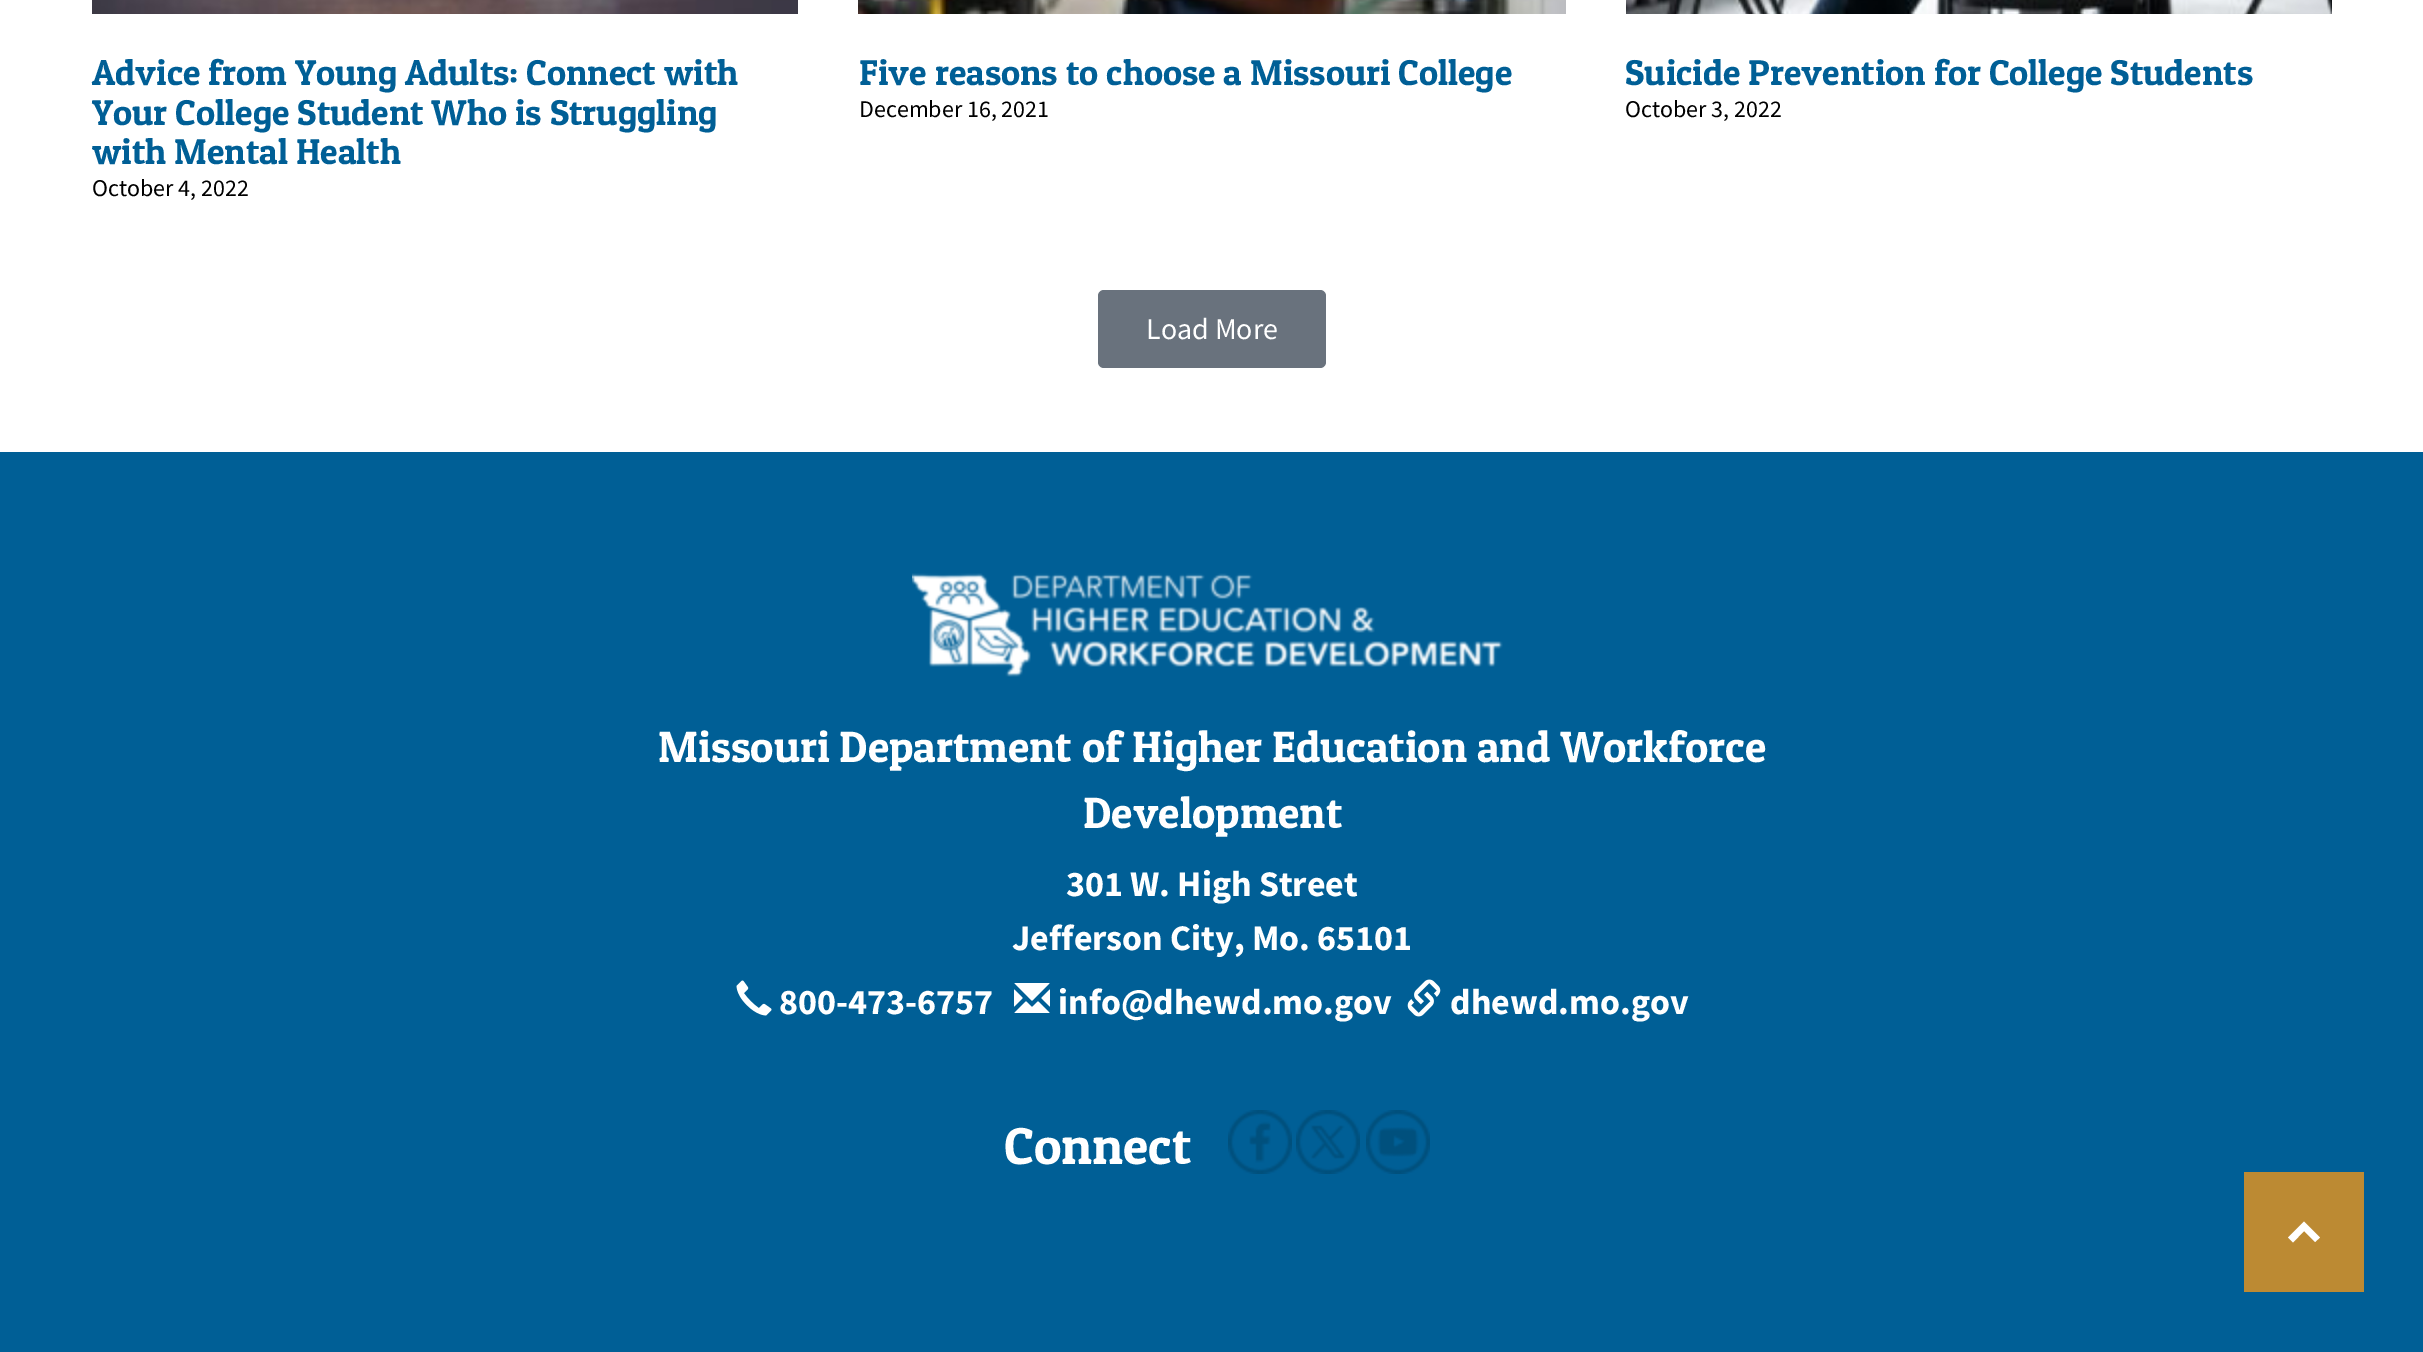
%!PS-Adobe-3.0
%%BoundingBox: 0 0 2423 1352
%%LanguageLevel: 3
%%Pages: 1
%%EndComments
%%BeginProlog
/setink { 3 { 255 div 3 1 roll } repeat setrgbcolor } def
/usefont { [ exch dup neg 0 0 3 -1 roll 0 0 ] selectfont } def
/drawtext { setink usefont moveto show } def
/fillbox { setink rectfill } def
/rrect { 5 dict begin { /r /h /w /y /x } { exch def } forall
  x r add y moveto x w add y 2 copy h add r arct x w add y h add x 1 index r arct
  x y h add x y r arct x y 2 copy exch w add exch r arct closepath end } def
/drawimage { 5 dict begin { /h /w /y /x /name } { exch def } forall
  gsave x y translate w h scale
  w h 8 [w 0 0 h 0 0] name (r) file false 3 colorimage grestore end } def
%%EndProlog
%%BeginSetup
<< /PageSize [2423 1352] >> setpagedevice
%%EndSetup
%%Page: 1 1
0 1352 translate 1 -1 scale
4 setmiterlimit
0 0 2423 1352 255 255 255 fillbox
(assets/img1.rgb) 92 0 706 14 drawimage
(Advice from Young Adults: Connect with) 92 85 /PatuaOne-Regular 36 0 95 150 drawtext
(Your College Student Who is Struggling) 92 125 /PatuaOne-Regular 36 0 95 150 drawtext
(with Mental Health) 92 164 /PatuaOne-Regular 36 0 95 150 drawtext
(October 4, 2022) 92 196 /SourceSansPro-Regular 24 0 0 0 drawtext
(assets/img2.rgb) 858 0 708 14 drawimage
(Five reasons to choose a Missouri College) 859 85 /PatuaOne-Regular 36 0 95 150 drawtext
(December 16, 2021) 859 117 /SourceSansPro-Regular 24 0 0 0 drawtext
(assets/img3.rgb) 1626 0 706 14 drawimage
(Suicide Prevention for College Students) 1625 85 /PatuaOne-Regular 36 0 95 150 drawtext
(October 3, 2022) 1625 117 /SourceSansPro-Regular 24 0 0 0 drawtext
105 114 125 setink
1098 290 228 78 6 rrect fill
(Load More) 1146 339 /SourceSansPro-Regular 30 255 255 255 drawtext
0 452 2423 900 0 95 150 fillbox
(assets/img4.rgb) 912 573 591 104 drawimage
(Missouri Department of Higher Education and Workforce) 658 762 /PatuaOne-Regular 44 255 255 255 drawtext
(Development) 1083 828 /PatuaOne-Regular 44 255 255 255 drawtext
(301 W. High Street) 1066 896 /SourceSansPro-Bold 36 255 255 255 drawtext
(Jefferson City, Mo. 65101) 1012 950 /SourceSansPro-Bold 36 255 255 255 drawtext
(assets/img5.rgb) 736 980 36 36 drawimage
(800-473-6757) 779 1014 /SourceSansPro-Bold 36 255 255 255 drawtext
(assets/img6.rgb) 1014 983 36 30 drawimage
(info@dhewd.mo.gov) 1058 1014 /SourceSansPro-Bold 36 255 255 255 drawtext
(assets/img7.rgb) 1407 979 34 38 drawimage
(dhewd.mo.gov) 1450 1014 /SourceSansPro-Bold 36 255 255 255 drawtext
(Connect) 1004 1164 /PatuaOne-Regular 52 255 255 255 drawtext
(assets/img8.rgb) 1228 1110 64 64 drawimage
(assets/img9.rgb) 1296 1110 64 64 drawimage
(assets/img10.rgb) 1366 1110 64 64 drawimage
2244 1172 120 120 188 138 51 fillbox
255 255 255 setink
2304 1221.5 moveto 2320 1237.5 lineto 2315 1242 lineto 2304 1231 lineto 2293 1242.5 lineto 2288 1237.5 lineto fill
showpage
%%EOF
